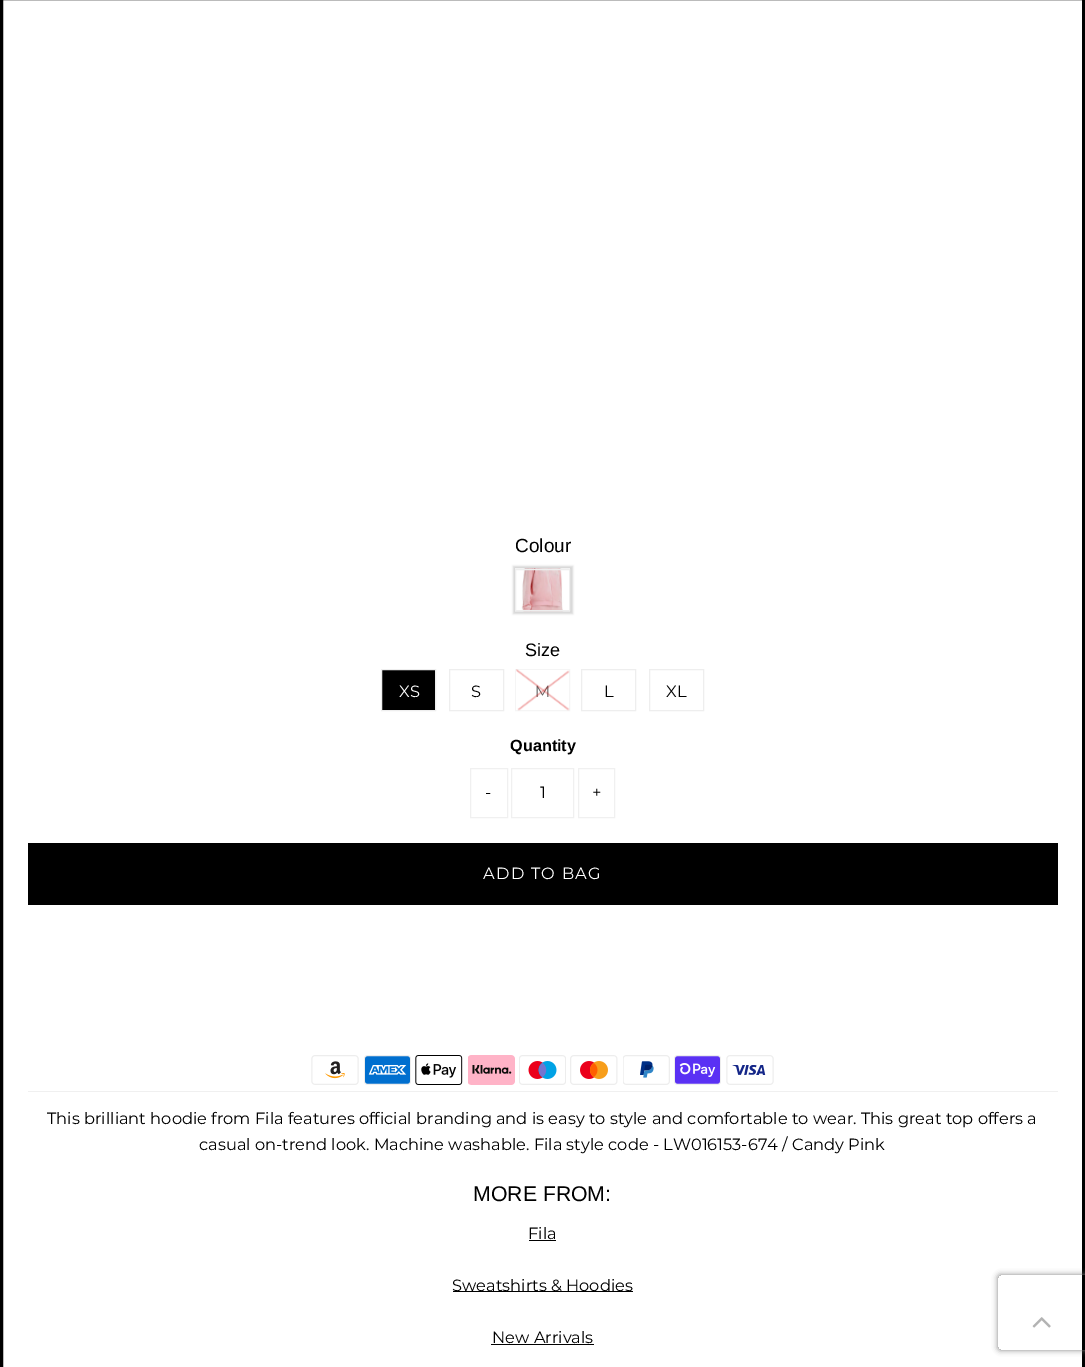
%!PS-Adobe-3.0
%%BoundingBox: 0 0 1085 1367
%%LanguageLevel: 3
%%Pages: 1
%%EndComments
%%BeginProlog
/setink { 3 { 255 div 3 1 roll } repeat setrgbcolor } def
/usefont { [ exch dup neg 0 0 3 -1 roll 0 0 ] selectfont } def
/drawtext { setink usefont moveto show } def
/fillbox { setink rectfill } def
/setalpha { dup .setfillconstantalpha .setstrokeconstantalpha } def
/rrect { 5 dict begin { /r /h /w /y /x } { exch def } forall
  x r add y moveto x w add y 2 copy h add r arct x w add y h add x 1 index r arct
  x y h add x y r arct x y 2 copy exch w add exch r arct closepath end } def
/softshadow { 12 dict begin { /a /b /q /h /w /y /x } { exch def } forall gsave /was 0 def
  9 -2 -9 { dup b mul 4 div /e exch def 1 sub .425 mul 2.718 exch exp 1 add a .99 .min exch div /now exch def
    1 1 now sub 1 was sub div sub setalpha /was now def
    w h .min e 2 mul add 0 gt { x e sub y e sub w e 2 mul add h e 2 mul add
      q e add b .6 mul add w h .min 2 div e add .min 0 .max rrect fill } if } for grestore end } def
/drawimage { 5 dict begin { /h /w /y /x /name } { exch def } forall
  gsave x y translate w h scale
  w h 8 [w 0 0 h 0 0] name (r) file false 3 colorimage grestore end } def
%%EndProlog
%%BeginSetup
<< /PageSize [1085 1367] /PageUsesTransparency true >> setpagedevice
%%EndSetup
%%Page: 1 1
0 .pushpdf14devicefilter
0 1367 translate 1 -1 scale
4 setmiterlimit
0 0 1085 1367 255 255 255 fillbox
0 0 0 setink
3 setlinewidth
1.5 -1.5 1082 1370 rectstroke
28 1091 1030 1 240 240 240 fillbox
(Colour) 515 552 /LiberationSans-Regular 19 0 0 0 drawtext
214 214 214 setink
513 566 60 48 0 1 1 softshadow
(assets/img1.rgb) 515 568 55 44 drawimage
238 238 238 setink
1 setlinewidth
515.5 569.5 54 41 rectstroke
(Size) 525 656 /LiberationSans-Regular 18 0 0 0 drawtext
381.5 669.5 moveto 435.5 669.5 lineto 435.5 710.5 lineto 381.5 710.5 lineto closepath gsave fill grestore
238 238 238 setink
stroke
(XS) 399 697 /Montserrat-Regular 16.25 255 255 255 drawtext
238 238 238 setink
449.5 669.5 54 41 rectstroke
(S) 471 697 /Montserrat-Regular 16.25 0 0 0 drawtext
245 245 245 setink
515.5 669.5 54 41 rectstroke
(M) 535 697 /Montserrat-Regular 16.25 102 102 102 drawtext
(assets/img2.rgb) 516 669 54 42 drawimage
238 238 238 setink
581.5 669.5 54 41 rectstroke
(L) 604 697 /Montserrat-Regular 16.25 0 0 0 drawtext
238 238 238 setink
649.5 669.5 54 41 rectstroke
(XL) 666 697 /Montserrat-Regular 16.25 0 0 0 drawtext
(Quantity) 510 751 /LiberationSans-Bold 16.25 0 0 0 drawtext
240 240 240 setink
470.5 768.5 37 49 rectstroke
(-) 485 798 /Montserrat-Regular 16.25 0 0 0 drawtext
240 240 240 setink
511.5 768.5 62 49 rectstroke
(1) 540 798 /Montserrat-Regular 16.25 0 0 0 drawtext
240 240 240 setink
578.5 768.5 36 49 rectstroke
(+) 592 798 /Montserrat-Regular 16.25 0 0 0 drawtext
28 843 1030 62 0 0 0 fillbox
255 255 255 setink
483 879 moveto 1.25 0 (ADD TO BAG) ashow
(assets/img3.rgb) 311 1055 48 30 drawimage
(assets/img4.rgb) 364 1055 47 30 drawimage
(assets/img5.rgb) 415 1055 48 30 drawimage
(assets/img6.rgb) 468 1055 47 30 drawimage
(assets/img7.rgb) 519 1055 47 30 drawimage
(assets/img8.rgb) 570 1055 48 30 drawimage
(assets/img9.rgb) 623 1055 47 30 drawimage
(assets/img10.rgb) 674 1055 47 30 drawimage
(assets/img11.rgb) 726 1055 48 30 drawimage
(This brilliant hoodie from Fila features official branding and is easy to style and comfortable to wear. This great top offers a) 47 1124 /Montserrat-Regular 16.25 0 0 0 drawtext
(casual on-trend look. Machine washable. Fila style code - LW016153-674 / Candy Pink) 199 1150 /Montserrat-Regular 16.25 0 0 0 drawtext
(MORE FROM:) 473 1201 /LiberationSans-Regular 21.25 0 0 0 drawtext
(Fila) 528 1239 /Montserrat-Regular 16.25 0 0 0 drawtext
529 1240 27 1 0 0 0 fillbox
453 1291 180 1 0 0 0 fillbox
(Sweatshirts & Hoodies) 452 1291 /Montserrat-Regular 16.25 0 0 0 drawtext
(New Arrivals) 492 1343 /Montserrat-Regular 16.25 0 0 0 drawtext
491 1344 103 1 0 0 0 fillbox
gsave
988 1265 moveto 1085 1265 lineto 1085 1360 lineto 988 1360 lineto closepath 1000.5 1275 moveto 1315.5 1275 lineto 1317 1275 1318 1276 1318 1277.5 curveto 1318 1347.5 lineto 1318 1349 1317 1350 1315.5 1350 curveto 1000.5 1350 lineto 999 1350 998 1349 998 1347.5 curveto 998 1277.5 lineto 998 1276 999 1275 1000.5 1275 curveto closepath eoclip newpath
128 128 128 setink
998 1275 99 75 2.5 3 1 softshadow
grestore
(assets/img12.rgb) 1032 1317 19 11 drawimage
.poppdf14devicefilter showpage
%%EOF
